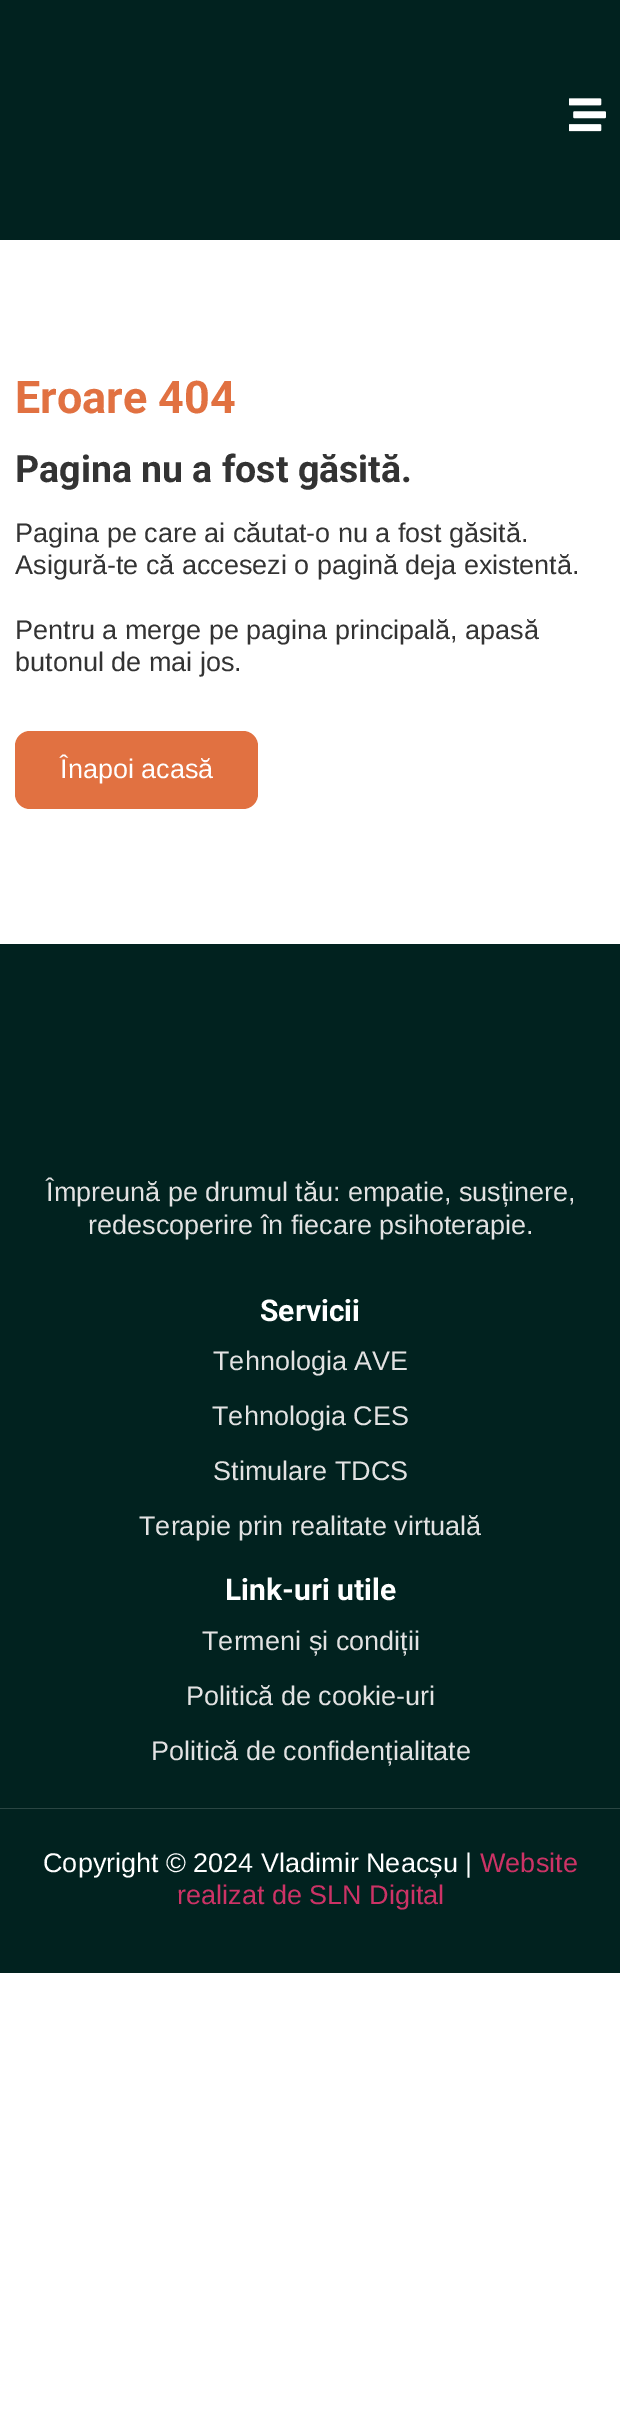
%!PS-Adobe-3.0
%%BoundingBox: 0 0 620 2435
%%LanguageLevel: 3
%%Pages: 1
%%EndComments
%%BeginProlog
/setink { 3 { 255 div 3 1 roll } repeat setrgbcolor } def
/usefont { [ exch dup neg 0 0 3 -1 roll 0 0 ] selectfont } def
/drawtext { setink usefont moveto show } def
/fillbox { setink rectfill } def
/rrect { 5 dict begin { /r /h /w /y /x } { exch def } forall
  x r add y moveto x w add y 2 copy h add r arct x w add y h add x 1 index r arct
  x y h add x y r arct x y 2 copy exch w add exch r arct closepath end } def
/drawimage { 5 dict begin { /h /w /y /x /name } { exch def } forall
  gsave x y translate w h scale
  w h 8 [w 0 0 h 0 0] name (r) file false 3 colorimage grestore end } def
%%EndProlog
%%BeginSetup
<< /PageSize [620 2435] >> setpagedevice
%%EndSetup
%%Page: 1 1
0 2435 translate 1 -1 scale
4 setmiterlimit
0 0 620 2435 255 255 255 fillbox
0 0 620 240 1 34 31 fillbox
(assets/img1.rgb) 569 98 37 34 drawimage
(Eroare 404) 15 413 /Roboto-Bold 45 225 113 65 drawtext
(Pagina nu a fost găsită.) 15 482 /Roboto-Bold 37.5 51 51 51 drawtext
(Pagina pe care ai căutat-o nu a fost găsită.) 15 542 /LiberationSans-Regular 27 51 51 51 drawtext
(Asigură-te că accesezi o pagină deja existentă.) 15 574 /LiberationSans-Regular 27 51 51 51 drawtext
(Pentru a merge pe pagina principală, apasă) 15 639 /LiberationSans-Regular 27 51 51 51 drawtext
(butonul de mai jos.) 15 671 /LiberationSans-Regular 27 51 51 51 drawtext
225 113 65 setink
15 731 243 78 15 rrect fill
(Înapoi acasă) 60 778 /LiberationSans-Regular 27 255 255 255 drawtext
0 944 620 864 1 34 31 fillbox
0 1808 620 1 42 69 66 fillbox
(Împreună pe drumul tău: empatie, susținere,) 46 1201 /LiberationSans-Regular 27 226 226 226 drawtext
(redescoperire în fiecare psihoterapie.) 88 1234 /LiberationSans-Regular 27 226 226 226 drawtext
(Servicii) 260 1321 /Roboto-Bold 30 255 255 255 drawtext
(Tehnologia AVE) 213 1370 /LiberationSans-Regular 27 226 226 226 drawtext
(Tehnologia CES) 212 1425 /LiberationSans-Regular 27 226 226 226 drawtext
(Stimulare TDCS) 213 1480 /LiberationSans-Regular 27 226 226 226 drawtext
(Terapie prin realitate virtuală) 139 1535 /LiberationSans-Regular 27 226 226 226 drawtext
(Link-uri utile) 225 1600 /Roboto-Bold 30 255 255 255 drawtext
(Termeni și condiții) 202 1650 /LiberationSans-Regular 27 226 226 226 drawtext
(Politică de cookie-uri) 186 1705 /LiberationSans-Regular 27 226 226 226 drawtext
(Politică de confidențialitate) 151 1760 /LiberationSans-Regular 27 226 226 226 drawtext
0 1809 620 164 1 34 31 fillbox
(Copyright © 2024 Vladimir Neacșu |) 43 1872 /LiberationSans-Regular 27 255 255 255 drawtext
(Website) 480 1872 /LiberationSans-Regular 27 204 51 102 drawtext
(realizat de SLN Digital) 177 1904 /LiberationSans-Regular 27 204 51 102 drawtext
showpage
%%EOF
